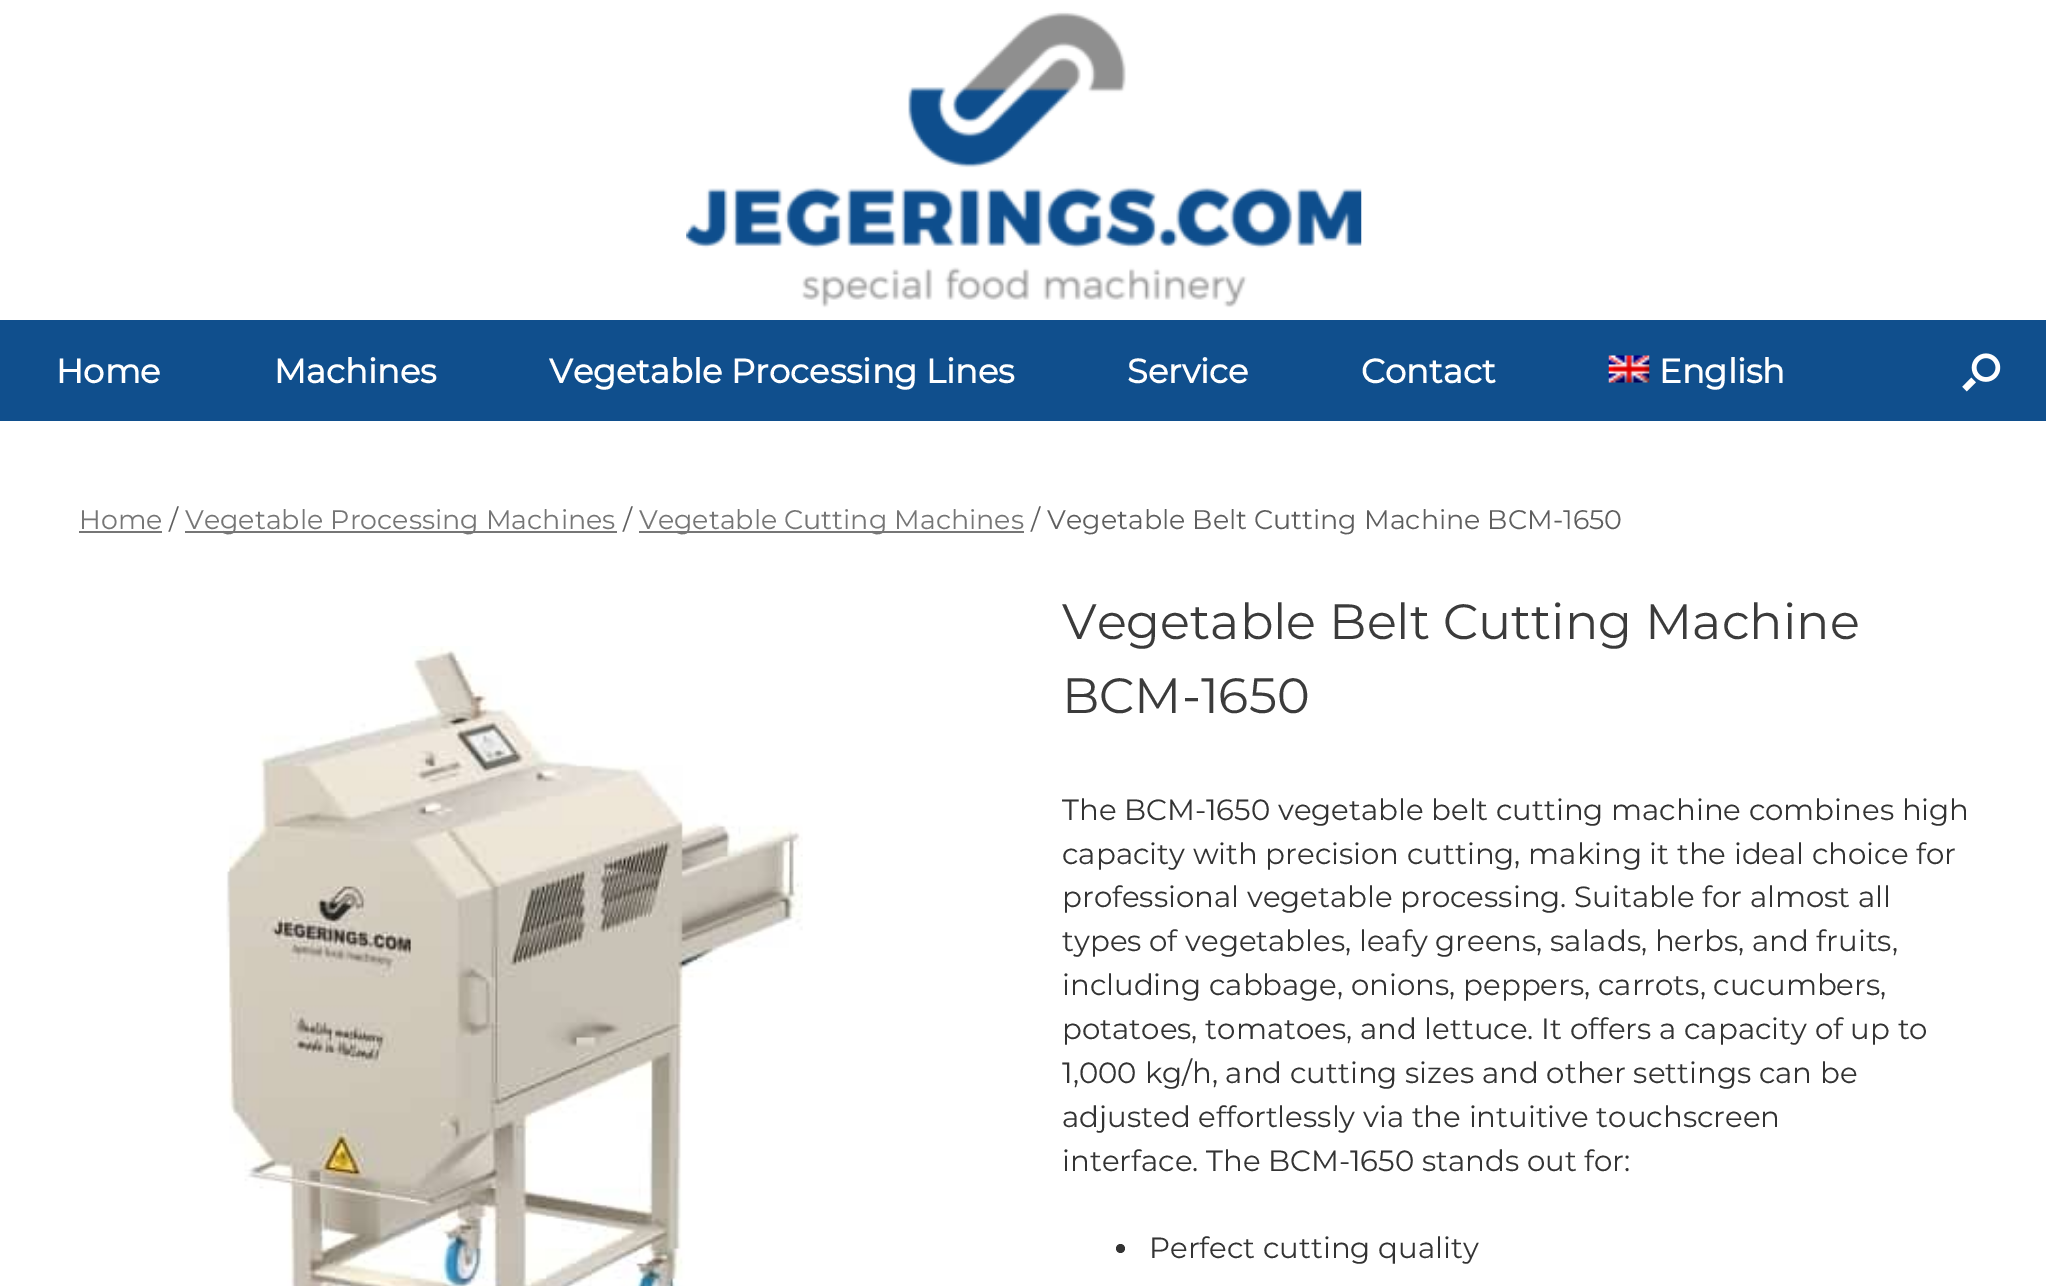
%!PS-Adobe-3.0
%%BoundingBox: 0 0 2046 1286
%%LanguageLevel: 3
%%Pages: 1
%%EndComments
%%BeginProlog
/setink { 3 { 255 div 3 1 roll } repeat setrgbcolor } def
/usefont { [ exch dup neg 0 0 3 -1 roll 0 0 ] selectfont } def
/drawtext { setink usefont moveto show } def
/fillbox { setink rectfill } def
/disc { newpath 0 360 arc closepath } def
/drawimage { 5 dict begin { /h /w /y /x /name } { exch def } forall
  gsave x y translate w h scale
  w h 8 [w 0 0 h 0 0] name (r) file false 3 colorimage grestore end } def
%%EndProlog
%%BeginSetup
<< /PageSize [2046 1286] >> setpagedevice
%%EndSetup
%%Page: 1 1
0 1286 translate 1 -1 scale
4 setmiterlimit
0 0 2046 1286 255 255 255 fillbox
(assets/img1.rgb) 686 11 676 297 drawimage
0 320 2046 101 16 79 141 fillbox
(Home) 56 383 /Montserrat-Bold 33.75 255 255 255 drawtext
(Machines) 274 383 /Montserrat-Bold 33.75 255 255 255 drawtext
(Vegetable Processing Lines) 549 383 /Montserrat-Bold 33.75 255 255 255 drawtext
(Service) 1127 383 /Montserrat-Bold 33.75 255 255 255 drawtext
(Contact) 1361 383 /Montserrat-Bold 33.75 255 255 255 drawtext
(assets/img2.rgb) 1608 355 42 28 drawimage
(English) 1659 383 /Montserrat-Bold 33.75 255 255 255 drawtext
(assets/img3.rgb) 1962 353 39 39 drawimage
(Home) 79 529 /Montserrat-Thin 26.9 118 118 118 drawtext
79 531 83 2 118 118 118 fillbox
(/) 169 529 /Montserrat-Thin 26.9 94 94 94 drawtext
185 531 432 2 118 118 118 fillbox
(Vegetable Processing Machines) 185 529 /Montserrat-Thin 26.9 118 118 118 drawtext
(/) 623 529 /Montserrat-Thin 26.9 94 94 94 drawtext
639 531 385 2 118 118 118 fillbox
(Vegetable Cutting Machines) 639 529 /Montserrat-Thin 26.9 118 118 118 drawtext
(/ Vegetable Belt Cutting Machine BCM-1650) 1031 529 /Montserrat-Thin 26.9 94 94 94 drawtext
(assets/img4.rgb) 226 646 577 640 drawimage
(Vegetable Belt Cutting Machine) 1062 639 /Montserrat-Thin 49.5 59 59 59 drawtext
(BCM-1650) 1062 713 /Montserrat-Thin 49.5 59 59 59 drawtext
(The BCM-1650 vegetable belt cutting machine combines high) 1062 820 /Montserrat-Thin 29.25 51 51 51 drawtext
(capacity with precision cutting, making it the ideal choice for) 1062 864 /Montserrat-Thin 29.25 51 51 51 drawtext
(professional vegetable processing. Suitable for almost all) 1062 907 /Montserrat-Thin 29.25 51 51 51 drawtext
(types of vegetables, leafy greens, salads, herbs, and fruits,) 1062 951 /Montserrat-Thin 29.25 51 51 51 drawtext
(including cabbage, onions, peppers, carrots, cucumbers,) 1062 995 /Montserrat-Thin 29.25 51 51 51 drawtext
(potatoes, tomatoes, and lettuce. It offers a capacity of up to) 1062 1039 /Montserrat-Thin 29.25 51 51 51 drawtext
(1,000 kg/h, and cutting sizes and other settings can be) 1062 1083 /Montserrat-Thin 29.25 51 51 51 drawtext
(adjusted effortlessly via the intuitive touchscreen) 1062 1127 /Montserrat-Thin 29.25 51 51 51 drawtext
(interface. The BCM-1650 stands out for:) 1062 1171 /Montserrat-Thin 29.25 51 51 51 drawtext
1120.5 1248.5 4.5 disc fill
(Perfect cutting quality) 1149 1258 /Montserrat-Thin 29.25 51 51 51 drawtext
showpage
%%EOF
